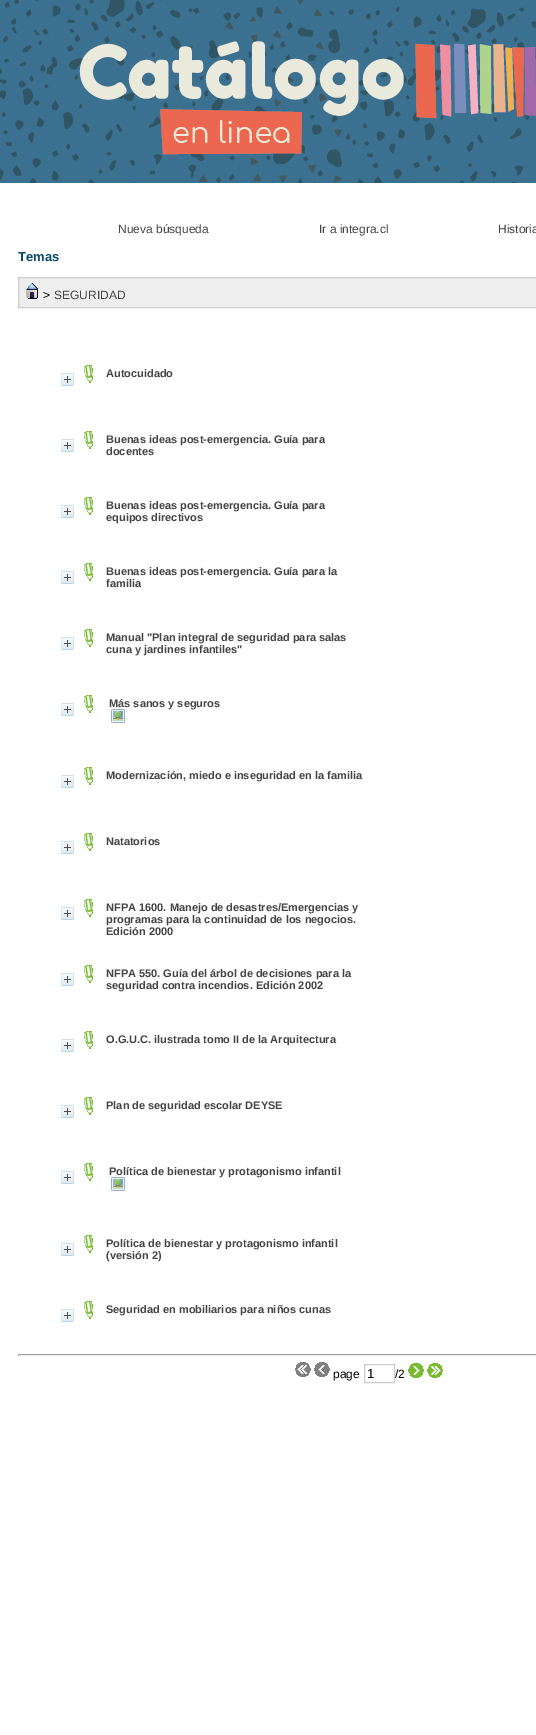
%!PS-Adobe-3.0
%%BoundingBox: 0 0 536 1735
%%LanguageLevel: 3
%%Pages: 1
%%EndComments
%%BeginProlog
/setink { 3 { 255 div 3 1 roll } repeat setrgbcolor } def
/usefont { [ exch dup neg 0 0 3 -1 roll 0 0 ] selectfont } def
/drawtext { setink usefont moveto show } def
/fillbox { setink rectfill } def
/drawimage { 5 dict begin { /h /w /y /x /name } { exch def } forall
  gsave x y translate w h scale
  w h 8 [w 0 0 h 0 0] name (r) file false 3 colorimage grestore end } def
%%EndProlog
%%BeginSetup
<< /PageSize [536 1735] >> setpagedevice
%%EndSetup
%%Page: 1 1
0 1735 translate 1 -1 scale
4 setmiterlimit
0 0 536 1735 255 255 255 fillbox
(assets/img1.rgb) 0 0 536 183 drawimage
(Nueva búsqueda) 118 233 /LiberationSans-Regular 12 68 68 68 drawtext
(Ir a integra.cl) 319 233 /LiberationSans-Regular 12 68 68 68 drawtext
(Historia) 498 233 /LiberationSans-Regular 12 68 68 68 drawtext
(Temas) 18 261 /LiberationSans-Bold 13 11 75 102 drawtext
238 238 238 setink
18.5 277.5 moveto 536.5 277.5 lineto 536.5 307.5 lineto 18.5 307.5 lineto closepath gsave fill grestore
204 204 204 setink
stroke
(assets/img2.rgb) 26 283 12 16 drawimage
(>) 43 299 /LiberationSans-Regular 12 0 0 0 drawtext
(SEGURIDAD) 54 299 /LiberationSans-Regular 12 68 68 68 drawtext
(assets/img3.rgb) 61 373 13 13 drawimage
(assets/img4.rgb) 84 365 9 18 drawimage
(Autocuidado) 106 377 /LiberationSans-Bold 11 68 68 68 drawtext
(assets/img3.rgb) 61 439 13 13 drawimage
(assets/img4.rgb) 84 431 9 18 drawimage
(Buenas ideas post-emergencia. Guía para) 106 443 /LiberationSans-Bold 11 68 68 68 drawtext
(docentes) 106 455 /LiberationSans-Bold 11 68 68 68 drawtext
(assets/img3.rgb) 61 505 13 13 drawimage
(assets/img4.rgb) 84 497 9 18 drawimage
(Buenas ideas post-emergencia. Guía para) 106 509 /LiberationSans-Bold 11 68 68 68 drawtext
(equipos directivos) 106 521 /LiberationSans-Bold 11 68 68 68 drawtext
(assets/img3.rgb) 61 571 13 13 drawimage
(assets/img4.rgb) 84 563 9 18 drawimage
(Buenas ideas post-emergencia. Guía para la) 106 575 /LiberationSans-Bold 11 68 68 68 drawtext
(familia) 106 587 /LiberationSans-Bold 11 68 68 68 drawtext
(assets/img3.rgb) 61 637 13 13 drawimage
(assets/img4.rgb) 84 629 9 18 drawimage
(Manual "Plan integral de seguridad para salas) 106 641 /LiberationSans-Bold 11 68 68 68 drawtext
(cuna y jardines infantiles") 106 653 /LiberationSans-Bold 11 68 68 68 drawtext
(assets/img3.rgb) 61 703 13 13 drawimage
(assets/img4.rgb) 84 695 9 18 drawimage
(assets/img5.rgb) 111 709 14 14 drawimage
(Más sanos y seguros) 109 707 /LiberationSans-Bold 11 68 68 68 drawtext
(assets/img3.rgb) 61 775 13 13 drawimage
(assets/img4.rgb) 84 767 9 18 drawimage
(Modernización, miedo e inseguridad en la familia) 106 779 /LiberationSans-Bold 11 68 68 68 drawtext
(assets/img3.rgb) 61 841 13 13 drawimage
(assets/img4.rgb) 84 833 9 18 drawimage
(Natatorios) 106 845 /LiberationSans-Bold 11 68 68 68 drawtext
(assets/img3.rgb) 61 907 13 13 drawimage
(assets/img4.rgb) 84 899 9 18 drawimage
(NFPA 1600. Manejo de desastres/Emergencias y) 106 911 /LiberationSans-Bold 11 68 68 68 drawtext
(programas para la continuidad de los negocios.) 106 923 /LiberationSans-Bold 11 68 68 68 drawtext
(Edición 2000) 106 935 /LiberationSans-Bold 11 68 68 68 drawtext
(assets/img3.rgb) 61 973 13 13 drawimage
(assets/img4.rgb) 84 965 9 18 drawimage
(NFPA 550. Guía del árbol de decisiones para la) 106 977 /LiberationSans-Bold 11 68 68 68 drawtext
(seguridad contra incendios. Edición 2002) 106 989 /LiberationSans-Bold 11 68 68 68 drawtext
(assets/img3.rgb) 61 1039 13 13 drawimage
(assets/img4.rgb) 84 1031 9 18 drawimage
(O.G.U.C. ilustrada tomo II de la Arquitectura) 106 1043 /LiberationSans-Bold 11 68 68 68 drawtext
(assets/img3.rgb) 61 1105 13 13 drawimage
(assets/img4.rgb) 84 1097 9 18 drawimage
(Plan de seguridad escolar DEYSE) 106 1109 /LiberationSans-Bold 11 68 68 68 drawtext
(assets/img3.rgb) 61 1171 13 13 drawimage
(assets/img4.rgb) 84 1163 9 18 drawimage
(assets/img5.rgb) 111 1177 14 14 drawimage
(Política de bienestar y protagonismo infantil) 109 1175 /LiberationSans-Bold 11 68 68 68 drawtext
(assets/img3.rgb) 61 1243 13 13 drawimage
(assets/img4.rgb) 84 1235 9 18 drawimage
(Política de bienestar y protagonismo infantil) 106 1247 /LiberationSans-Bold 11 68 68 68 drawtext
(\(versión 2\)) 106 1259 /LiberationSans-Bold 11 68 68 68 drawtext
(assets/img3.rgb) 61 1309 13 13 drawimage
(assets/img4.rgb) 84 1301 9 18 drawimage
(Seguridad en mobiliarios para niños cunas) 106 1313 /LiberationSans-Bold 11 68 68 68 drawtext
18 1354 518 1 159 159 159 fillbox
18 1355 518 1 238 238 238 fillbox
18 1354 1 2 159 159 159 fillbox
(assets/img6.rgb) 295 1362 16 15 drawimage
(assets/img7.rgb) 314 1362 16 15 drawimage
(page) 333 1378 /LiberationSans-Regular 12 0 0 0 drawtext
204 204 204 setink
364.5 1364.5 30 18 rectstroke
(1) 367 1378 /LiberationSans-Regular 13 0 0 0 drawtext
(/2) 395 1378 /LiberationSans-Regular 12 0 0 0 drawtext
(assets/img8.rgb) 408 1363 16 15 drawimage
(assets/img9.rgb) 427 1363 16 15 drawimage
showpage
%%EOF
